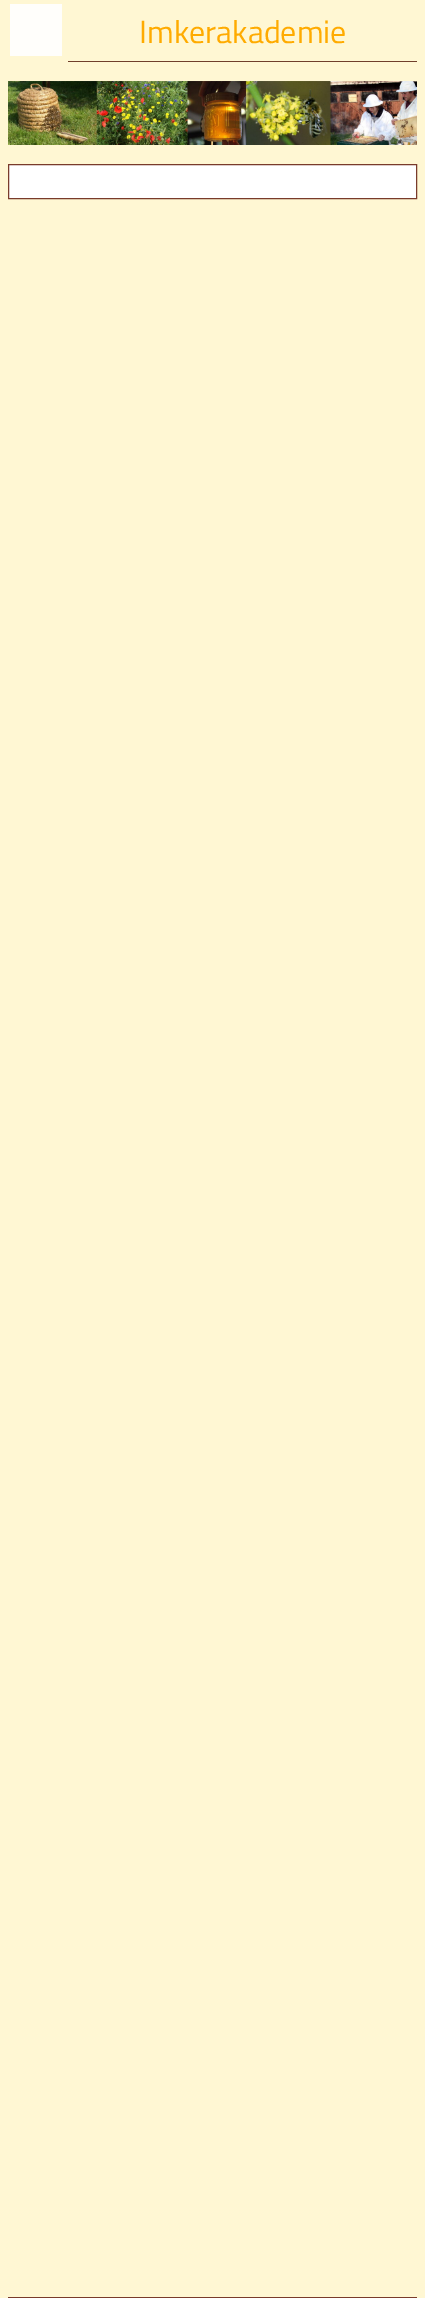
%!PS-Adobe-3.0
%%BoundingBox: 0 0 425 2298
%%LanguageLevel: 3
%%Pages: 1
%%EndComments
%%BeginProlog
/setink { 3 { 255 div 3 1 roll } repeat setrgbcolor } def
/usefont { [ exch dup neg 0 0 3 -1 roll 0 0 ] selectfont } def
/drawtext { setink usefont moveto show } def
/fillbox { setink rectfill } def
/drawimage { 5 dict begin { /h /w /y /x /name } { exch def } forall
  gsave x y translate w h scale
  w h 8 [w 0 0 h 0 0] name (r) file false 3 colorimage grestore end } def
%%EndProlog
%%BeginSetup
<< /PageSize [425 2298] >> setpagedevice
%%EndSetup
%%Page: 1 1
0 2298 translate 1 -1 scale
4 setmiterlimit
0 0 425 2298 255 247 211 fillbox
10 4 52 52 255 254 251 fillbox
68 61 349 1 112 63 43 fillbox
(Imkerakademie) 139 43 /TitilliumWeb-Regular 32 255 171 0 drawtext
(assets/img1.rgb) 8 81 409 64 drawimage
255 255 255 setink
8.5 164.5 moveto 416.5 164.5 lineto 416.5 198.5 lineto 8.5 198.5 lineto closepath gsave fill grestore
121 59 43 setink
stroke
8 2297 409 1 121 59 43 fillbox
showpage
%%EOF
